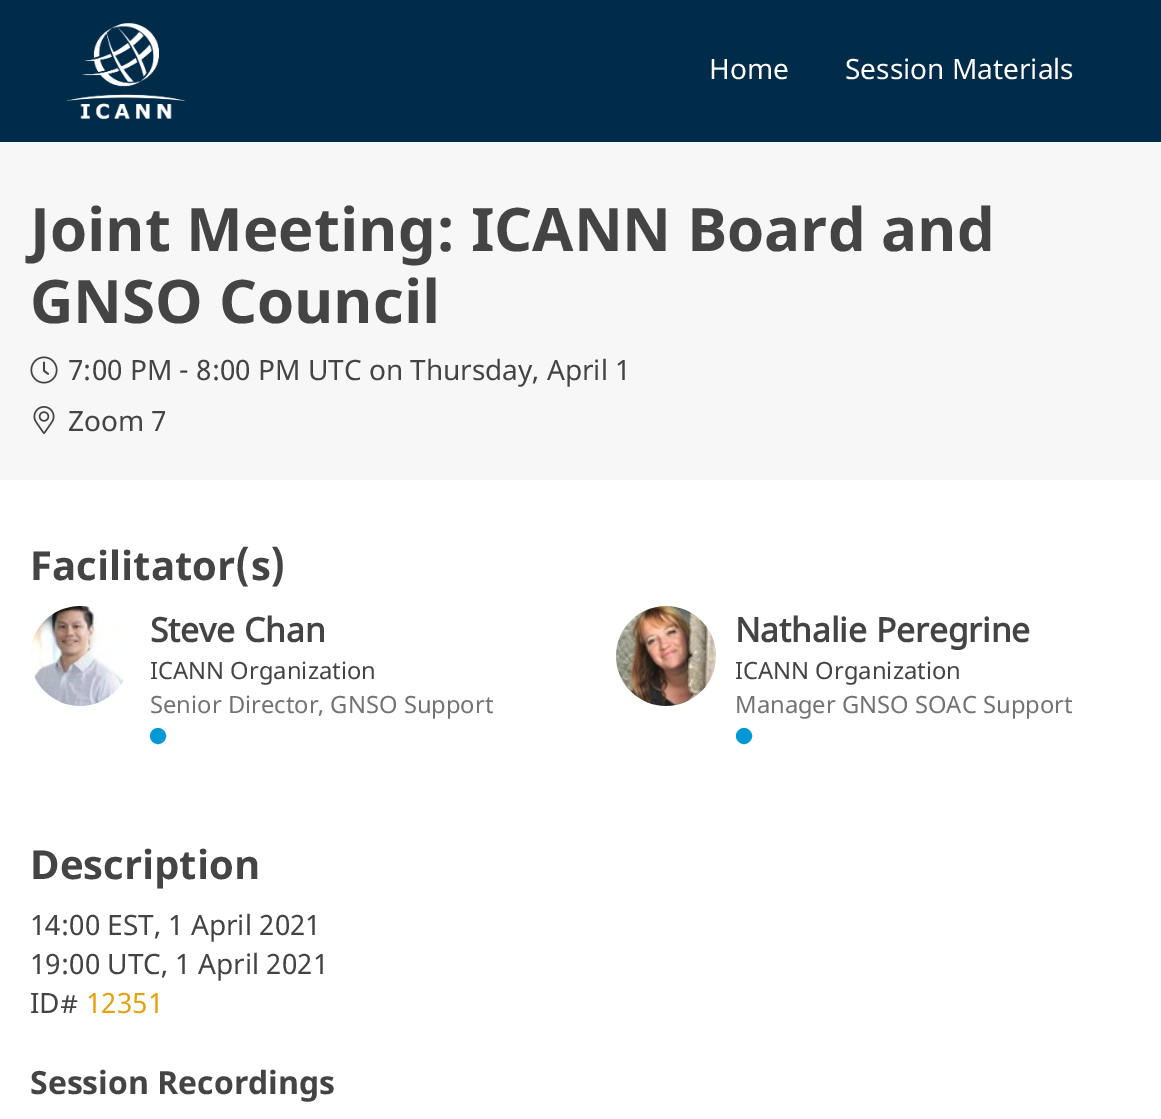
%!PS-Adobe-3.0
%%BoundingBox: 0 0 1161 1119
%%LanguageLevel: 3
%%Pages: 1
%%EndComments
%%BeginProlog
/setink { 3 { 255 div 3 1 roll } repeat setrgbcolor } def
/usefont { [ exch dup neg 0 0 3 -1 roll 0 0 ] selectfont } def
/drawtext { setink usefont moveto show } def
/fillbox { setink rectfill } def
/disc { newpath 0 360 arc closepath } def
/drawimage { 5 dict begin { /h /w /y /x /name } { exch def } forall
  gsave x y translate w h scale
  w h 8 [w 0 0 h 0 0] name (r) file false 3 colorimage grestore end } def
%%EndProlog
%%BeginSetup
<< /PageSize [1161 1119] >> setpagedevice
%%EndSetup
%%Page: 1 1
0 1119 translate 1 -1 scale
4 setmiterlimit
0 0 1161 1119 255 255 255 fillbox
0 0 1161 142 0 43 73 fillbox
(assets/img1.rgb) 66 22 120 98 drawimage
(Home) 709 79 /NotoSans-Regular 28 255 255 255 drawtext
(Session Materials) 845 79 /NotoSans-Regular 28 255 255 255 drawtext
0 142 1161 338 247 247 247 fillbox
(Joint Meeting: ICANN Board and) 30 251 /NotoSans-Bold 60 68 68 68 drawtext
(GNSO Council) 30 323 /NotoSans-Bold 60 68 68 68 drawtext
(assets/img2.rgb) 30 356 28 28 drawimage
(7:00 PM - 8:00 PM UTC on Thursday, April 1) 68 380 /NotoSans-Regular 28 68 68 68 drawtext
(assets/img3.rgb) 33 406 22 28 drawimage
(Zoom 7) 68 431 /NotoSans-Regular 28 68 68 68 drawtext
(Facilitator\(s\)) 30 580 /NotoSans-Bold 40 68 68 68 drawtext
(assets/img4.rgb) 30 606 94 100 drawimage
(Steve Chan) 150 642 /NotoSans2-Bold 33.5 68 68 68 drawtext
(ICANN Organization) 150 679 /NotoSans-Regular 23.75 68 68 68 drawtext
(Senior Director, GNSO Support) 150 713 /NotoSans-Regular 23.75 115 115 115 drawtext
0 152 213 setink
158 736 7 disc gsave fill grestore
2 setlinewidth
stroke
(assets/img5.rgb) 616 606 100 100 drawimage
(Nathalie Peregrine) 735 642 /NotoSans2-Bold 33.5 68 68 68 drawtext
(ICANN Organization) 735 679 /NotoSans-Regular 23.75 68 68 68 drawtext
(Manager GNSO SOAC Support) 735 713 /NotoSans-Regular 23.75 115 115 115 drawtext
0 152 213 setink
744 736 7 disc gsave fill grestore
stroke
(Description) 30 879 /NotoSans-Bold 40 68 68 68 drawtext
(14:00 EST, 1 April 2021) 30 935 /NotoSans-Regular 28 68 68 68 drawtext
(19:00 UTC, 1 April 2021) 30 974 /NotoSans-Regular 28 68 68 68 drawtext
(ID#) 30 1013 /NotoSans-Regular 28 68 68 68 drawtext
(12351) 86 1013 /NotoSans-Regular 28 228 162 19 drawtext
(Session Recordings) 30 1094 /NotoSans-Bold 32 68 68 68 drawtext
showpage
%%EOF
